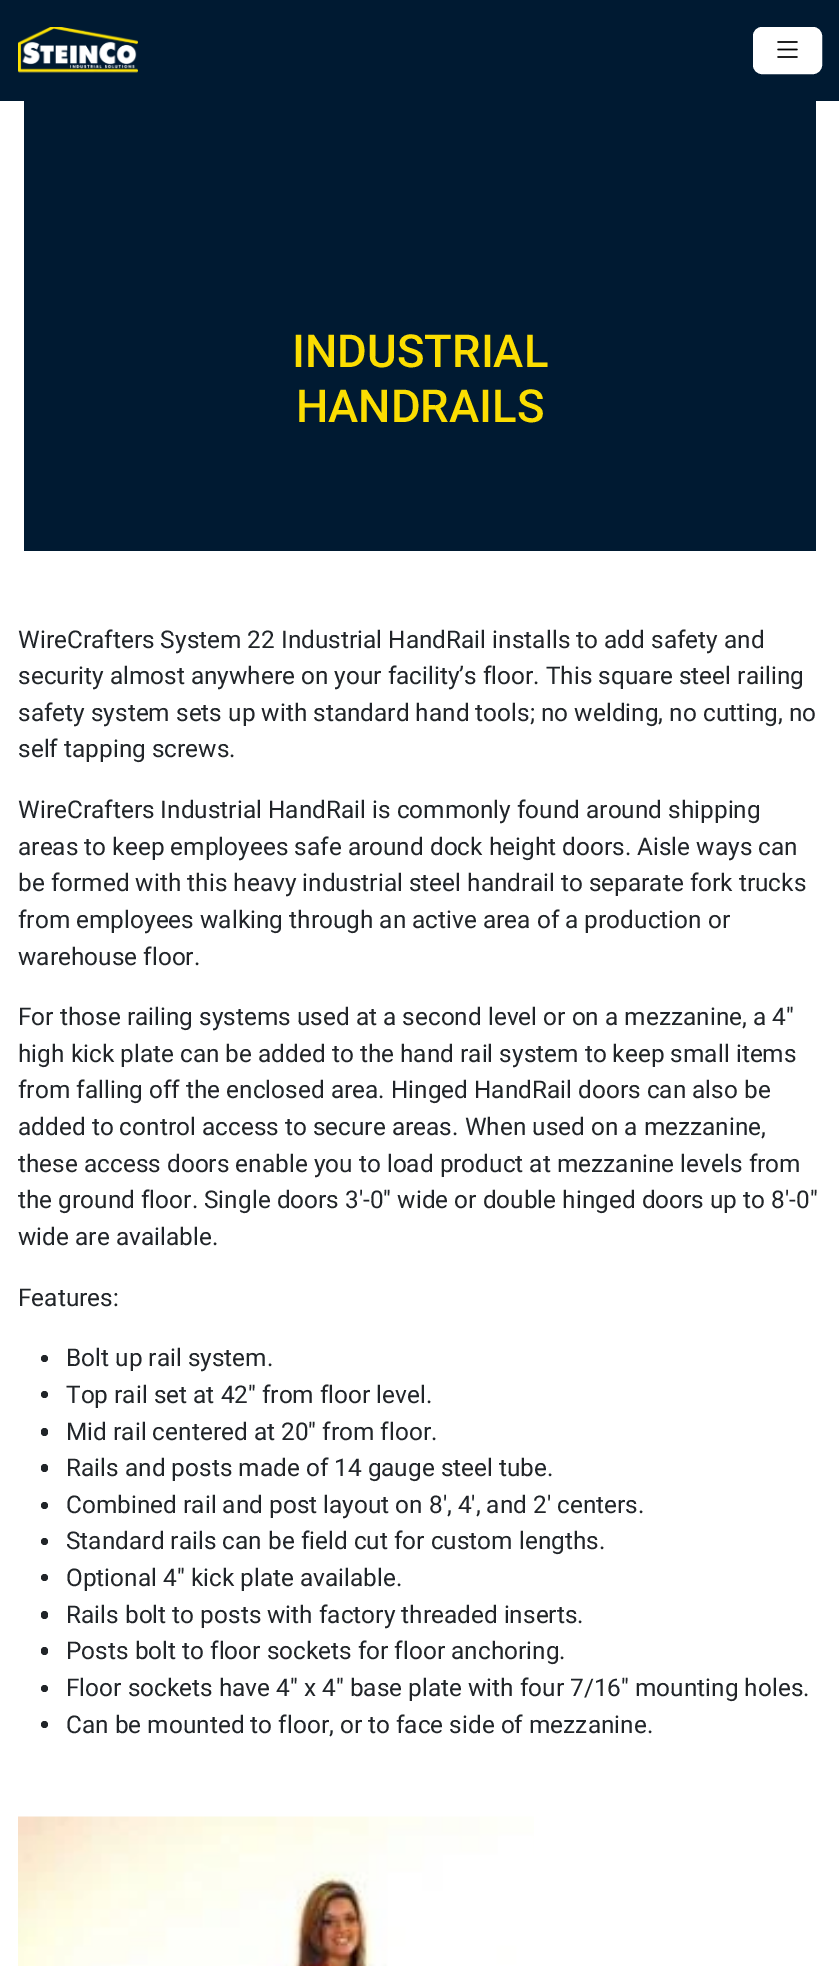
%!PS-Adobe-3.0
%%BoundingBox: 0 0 839 1966
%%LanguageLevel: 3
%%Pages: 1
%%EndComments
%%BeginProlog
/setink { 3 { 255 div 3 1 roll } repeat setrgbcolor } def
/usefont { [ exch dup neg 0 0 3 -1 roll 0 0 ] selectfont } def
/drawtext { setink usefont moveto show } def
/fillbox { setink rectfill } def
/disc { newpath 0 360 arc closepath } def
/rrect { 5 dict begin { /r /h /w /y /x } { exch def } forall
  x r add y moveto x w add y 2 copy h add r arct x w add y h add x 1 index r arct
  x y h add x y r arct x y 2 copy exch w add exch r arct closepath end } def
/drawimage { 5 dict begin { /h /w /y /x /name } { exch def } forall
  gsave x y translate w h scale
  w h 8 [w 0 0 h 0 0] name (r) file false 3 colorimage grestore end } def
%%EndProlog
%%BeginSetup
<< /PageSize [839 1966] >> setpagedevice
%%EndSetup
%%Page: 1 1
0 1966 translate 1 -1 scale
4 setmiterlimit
0 0 839 1966 255 255 255 fillbox
0 0 839 101 0 26 50 fillbox
(assets/img1.rgb) 18 27 120 46 drawimage
255 255 255 setink
754 28 67 45 8 rrect gsave fill grestore
2 setlinewidth
stroke
(assets/img2.rgb) 777 41 21 17 drawimage
24 101 792 450 0 26 50 fillbox
(INDUSTRIAL) 292 367 /Roboto-Medium 45.5 251 221 1 drawtext
(HANDRAILS) 296 422 /Roboto-Medium 45.5 251 221 1 drawtext
(WireCrafters System 22 Industrial HandRail installs to add safety and) 18 648 /Roboto-Regular 24.4 33 37 41 drawtext
(security almost anywhere on your facility’s floor. This square steel railing) 18 684 /Roboto-Regular 24.4 33 37 41 drawtext
(safety system sets up with standard hand tools; no welding, no cutting, no) 18 721 /Roboto-Regular 24.4 33 37 41 drawtext
(self tapping screws.) 18 757 /Roboto-Regular 24.4 33 37 41 drawtext
(WireCrafters Industrial HandRail is commonly found around shipping) 18 818 /Roboto-Regular 24.4 33 37 41 drawtext
(areas to keep employees safe around dock height doors. Aisle ways can) 18 855 /Roboto-Regular 24.4 33 37 41 drawtext
(be formed with this heavy industrial steel handrail to separate fork trucks) 18 891 /Roboto-Regular 24.4 33 37 41 drawtext
(from employees walking through an active area of a production or) 18 928 /Roboto-Regular 24.4 33 37 41 drawtext
(warehouse floor.) 18 965 /Roboto-Regular 24.4 33 37 41 drawtext
(For those railing systems used at a second level or on a mezzanine, a 4″) 18 1025 /Roboto-Regular 24.4 33 37 41 drawtext
(high kick plate can be added to the hand rail system to keep small items) 18 1062 /Roboto-Regular 24.4 33 37 41 drawtext
(from falling off the enclosed area. Hinged HandRail doors can also be) 18 1098 /Roboto-Regular 24.4 33 37 41 drawtext
(added to control access to secure areas. When used on a mezzanine,) 18 1135 /Roboto-Regular 24.4 33 37 41 drawtext
(these access doors enable you to load product at mezzanine levels from) 18 1172 /Roboto-Regular 24.4 33 37 41 drawtext
(the ground floor. Single doors 3′-0″ wide or double hinged doors up to 8′-0″) 18 1208 /Roboto-Regular 24.4 33 37 41 drawtext
(wide are available.) 18 1245 /Roboto-Regular 24.4 33 37 41 drawtext
(Features:) 18 1306 /Roboto-Regular 24.4 33 37 41 drawtext
44.5 1358.5 3.5 disc fill
(Bolt up rail system.) 66 1366 /Roboto-Regular 24.4 33 37 41 drawtext
44.5 1394.5 3.5 disc fill
(Top rail set at 42″ from floor level.) 66 1403 /Roboto-Regular 24.4 33 37 41 drawtext
41 1428 7 8 3.5 rrect fill
(Mid rail centered at 20″ from floor.) 66 1440 /Roboto-Regular 24.4 33 37 41 drawtext
41 1464 7 8 3.5 rrect fill
(Rails and posts made of 14 gauge steel tube.) 66 1476 /Roboto-Regular 24.4 33 37 41 drawtext
44.5 1505.5 3.5 disc fill
(Combined rail and post layout on 8′, 4′, and 2′ centers.) 66 1513 /Roboto-Regular 24.4 33 37 41 drawtext
44.5 1541.5 3.5 disc fill
(Standard rails can be field cut for custom lengths.) 66 1549 /Roboto-Regular 24.4 33 37 41 drawtext
44.5 1577.5 3.5 disc fill
(Optional 4″ kick plate available.) 66 1586 /Roboto-Regular 24.4 33 37 41 drawtext
41 1611 7 8 3.5 rrect fill
(Rails bolt to posts with factory threaded inserts.) 66 1623 /Roboto-Regular 24.4 33 37 41 drawtext
41 1647 7 8 3.5 rrect fill
(Posts bolt to floor sockets for floor anchoring.) 66 1659 /Roboto-Regular 24.4 33 37 41 drawtext
44.5 1688.5 3.5 disc fill
(Floor sockets have 4″ x 4″ base plate with four 7/16″ mounting holes.) 66 1696 /Roboto-Regular 24.4 33 37 41 drawtext
44.5 1724.5 3.5 disc fill
(Can be mounted to floor, or to face side of mezzanine.) 66 1733 /Roboto-Regular 24.4 33 37 41 drawtext
(assets/img3.rgb) 18 1816 516 150 drawimage
showpage
%%EOF
